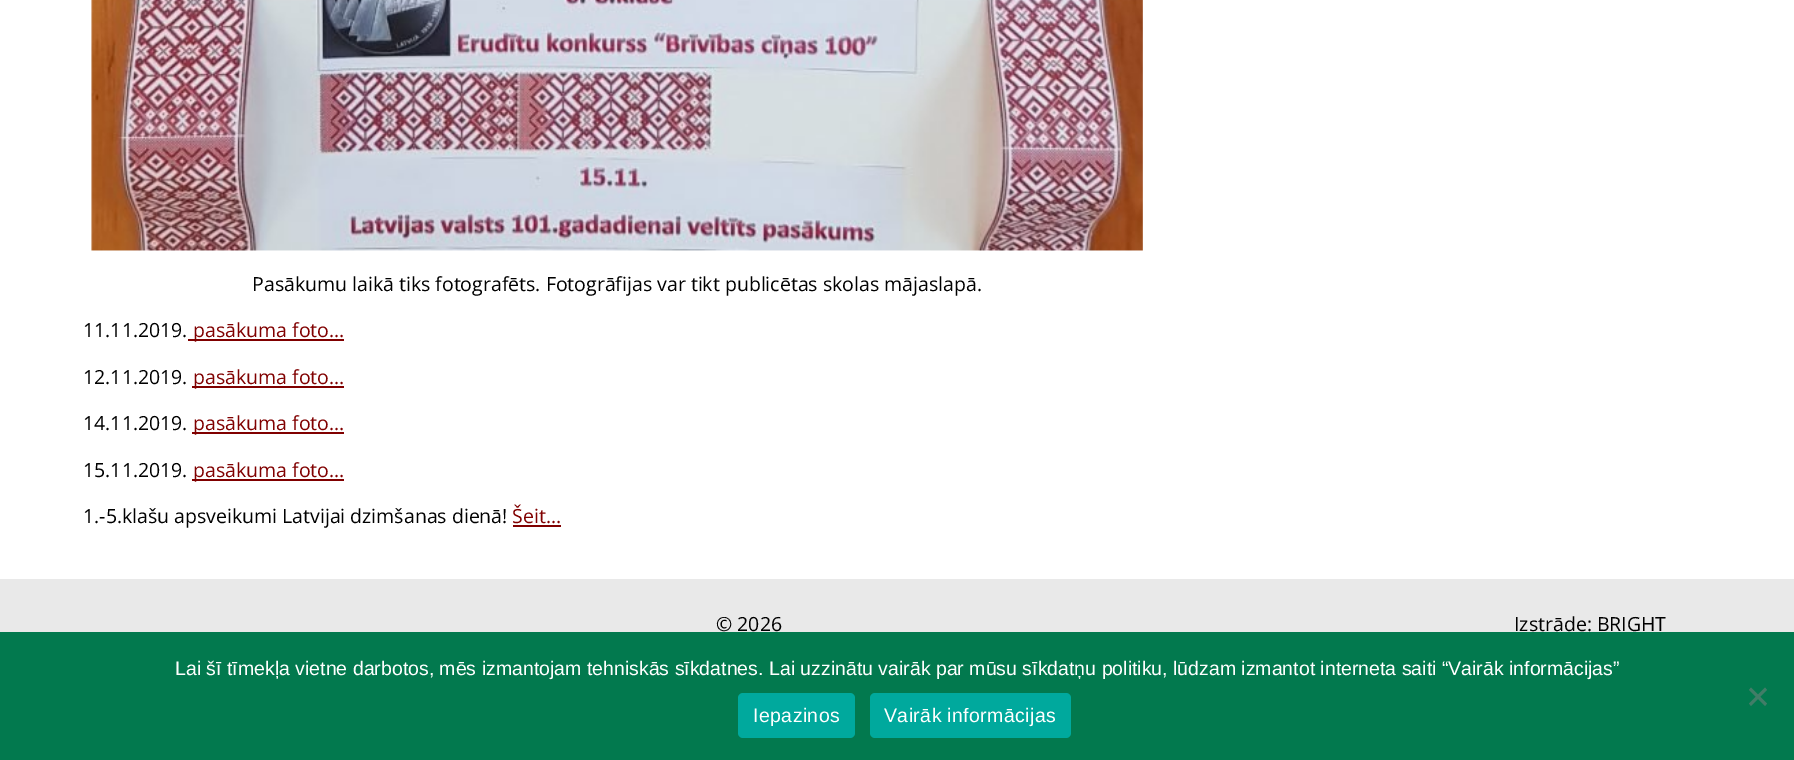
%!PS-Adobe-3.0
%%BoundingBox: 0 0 1794 760
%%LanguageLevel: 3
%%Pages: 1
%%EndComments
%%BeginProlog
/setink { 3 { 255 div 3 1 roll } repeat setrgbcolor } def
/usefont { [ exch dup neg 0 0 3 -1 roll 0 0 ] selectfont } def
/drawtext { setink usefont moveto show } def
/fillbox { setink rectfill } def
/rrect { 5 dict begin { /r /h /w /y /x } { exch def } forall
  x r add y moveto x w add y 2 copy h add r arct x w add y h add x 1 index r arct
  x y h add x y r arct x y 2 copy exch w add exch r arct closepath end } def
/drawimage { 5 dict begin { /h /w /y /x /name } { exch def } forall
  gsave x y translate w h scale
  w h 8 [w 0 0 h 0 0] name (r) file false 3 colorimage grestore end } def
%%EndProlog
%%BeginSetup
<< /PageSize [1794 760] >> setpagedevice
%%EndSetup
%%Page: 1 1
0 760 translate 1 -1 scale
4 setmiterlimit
0 0 1794 760 255 255 255 fillbox
(assets/img1.rgb) 91 0 1052 251 drawimage
(Pasākumu laikā tiks fotografēts. Fotogrāfijas var tikt publicētas skolas mājaslapā.) 252 291 /OpenSans-Regular 19.5 0 0 0 drawtext
(11.11.2019.) 83 337 /OpenSans-Regular 19.5 0 0 0 drawtext
188 339 156 2 128 0 0 fillbox
(pasākuma foto…) 193 337 /OpenSans-Regular 19.5 128 0 0 drawtext
(12.11.2019.) 83 384 /OpenSans-Regular 19.5 0 0 0 drawtext
192 386 152 2 128 0 0 fillbox
(pasākuma foto…) 193 384 /OpenSans-Regular 19.5 128 0 0 drawtext
(14.11.2019.) 83 430 /OpenSans-Regular 19.5 0 0 0 drawtext
192 432 152 2 128 0 0 fillbox
(pasākuma foto…) 193 430 /OpenSans-Regular 19.5 128 0 0 drawtext
(15.11.2019.) 83 477 /OpenSans-Regular 19.5 0 0 0 drawtext
192 479 152 2 128 0 0 fillbox
(pasākuma foto…) 193 477 /OpenSans-Regular 19.5 128 0 0 drawtext
(1.-5.klašu apsveikumi Latvijai dzimšanas dienā!) 83 523 /OpenSans-Regular 19.5 0 0 0 drawtext
(Šeit…) 512 523 /OpenSans-Regular 19.5 128 0 0 drawtext
513 525 48 2 128 0 0 fillbox
0 579 1794 53 233 233 233 fillbox
(© 2026) 716 631 /OpenSans-Regular 19.5 0 0 0 drawtext
(Izstrāde: BRIGHT) 1514 631 /OpenSans-Regular 19.5 0 0 0 drawtext
0 632 1794 128 2 121 78 fillbox
(Lai šī tīmekļa vietne darbotos, mēs izmantojam tehniskās sīkdatnes. Lai uzzinātu vairāk par mūsu sīkdatņu politiku, lūdzam izmantot interneta saiti “Vairāk informācijas”) 175 675 /LiberationSans-Regular 19.5 255 255 255 drawtext
65 125 103 setink
1765 687.5 moveto 1767 690 lineto 1751 706 lineto 1749 703.5 lineto closepath fill
1749 690 moveto 1751 687.5 lineto 1767 703.5 lineto 1765 706 lineto closepath fill
0 169 157 setink
738 693 117 45 5 rrect fill
255 255 255 setink
753 722 moveto 0.4 0 (Iepazinos) ashow
0 169 157 setink
870 693 201 45 5 rrect fill
255 255 255 setink
884 722 moveto 0.4 0 (Vairāk informācijas) ashow
showpage
%%EOF
